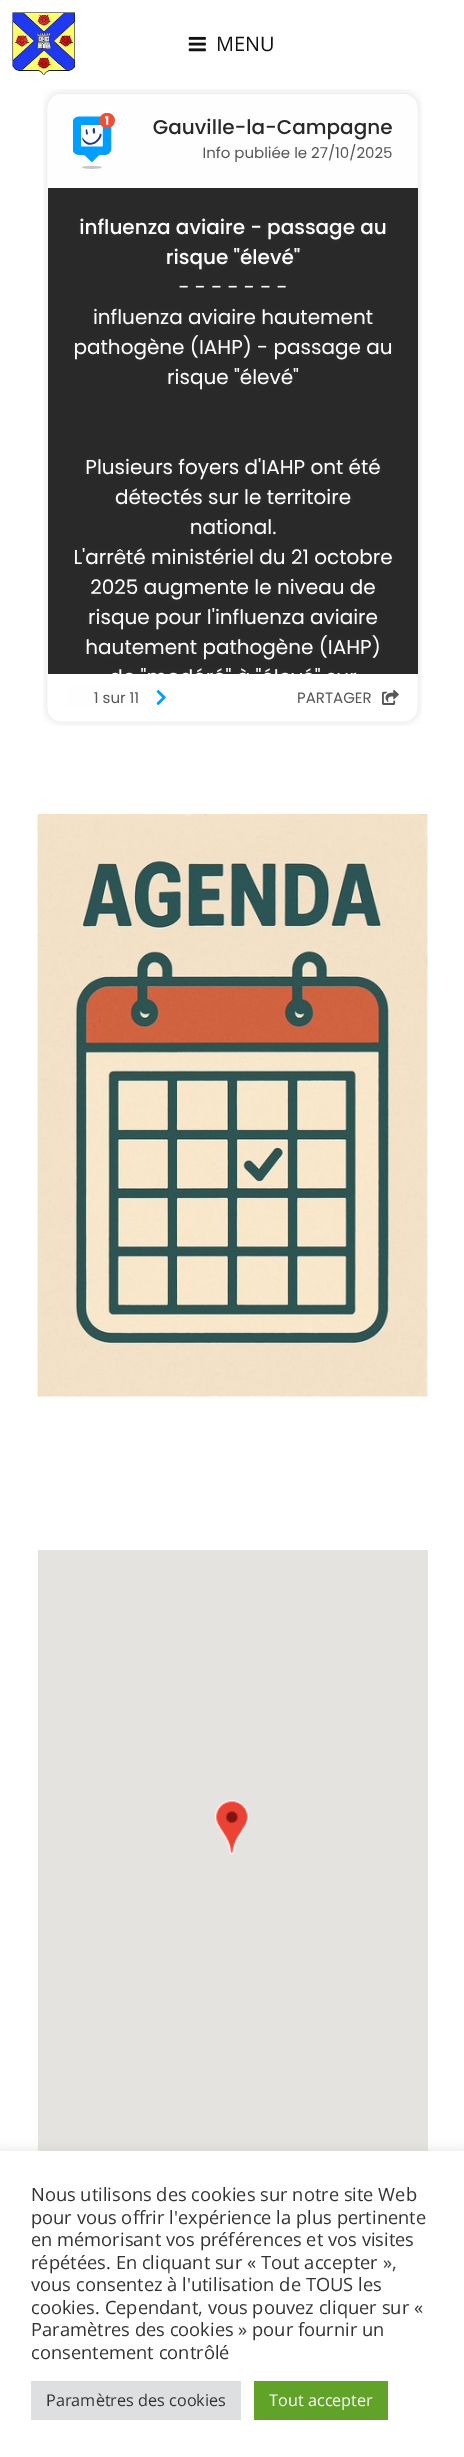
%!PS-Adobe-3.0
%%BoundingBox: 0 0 464 2457
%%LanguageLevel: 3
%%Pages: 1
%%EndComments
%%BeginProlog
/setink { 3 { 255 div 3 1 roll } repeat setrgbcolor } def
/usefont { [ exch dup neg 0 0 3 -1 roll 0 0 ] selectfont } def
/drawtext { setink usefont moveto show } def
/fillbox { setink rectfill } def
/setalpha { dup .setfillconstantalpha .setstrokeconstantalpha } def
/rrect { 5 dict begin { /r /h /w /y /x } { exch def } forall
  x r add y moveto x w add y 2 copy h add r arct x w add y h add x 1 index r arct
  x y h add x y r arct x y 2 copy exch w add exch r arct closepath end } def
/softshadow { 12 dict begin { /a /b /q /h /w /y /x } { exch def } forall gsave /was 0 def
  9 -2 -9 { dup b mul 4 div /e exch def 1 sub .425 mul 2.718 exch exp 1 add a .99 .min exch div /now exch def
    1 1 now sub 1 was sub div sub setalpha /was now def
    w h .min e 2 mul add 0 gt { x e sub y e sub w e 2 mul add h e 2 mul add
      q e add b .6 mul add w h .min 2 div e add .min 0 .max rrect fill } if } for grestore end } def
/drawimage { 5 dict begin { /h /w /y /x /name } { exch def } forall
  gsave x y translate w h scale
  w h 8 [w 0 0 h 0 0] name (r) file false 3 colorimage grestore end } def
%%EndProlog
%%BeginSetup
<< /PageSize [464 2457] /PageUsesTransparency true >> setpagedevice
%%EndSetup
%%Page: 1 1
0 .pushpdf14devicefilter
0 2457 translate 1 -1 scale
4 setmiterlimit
0 0 464 2457 255 255 255 fillbox
(assets/img1.rgb) 12 12 63 63 drawimage
(assets/img2.rgb) 188 36 18 16 drawimage
(MENU) 216 51 /OpenSans-Regular 20 17 17 17 drawtext
(assets/img3.rgb) 43 89 379 637 drawimage
(assets/img4.rgb) 37 814 391 583 drawimage
38 1550 390 601 229 227 223 fillbox
(assets/img5.rgb) 215 1800 34 54 drawimage
172 171 171 setink
0 2150 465 306 0 6 0.3 softshadow
0 2151 464 306 255 255 255 fillbox
(Nous utilisons des cookies sur notre site Web) 31 2201 /OpenSans-Regular 18.3 51 51 51 drawtext
(pour vous offrir l'expérience la plus pertinente) 31 2224 /OpenSans-Regular 18.3 51 51 51 drawtext
(en mémorisant vos préférences et vos visites) 31 2246 /OpenSans-Regular 18.3 51 51 51 drawtext
(répétées. En cliquant sur « Tout accepter »,) 31 2269 /OpenSans-Regular 18.3 51 51 51 drawtext
(vous consentez à l'utilisation de TOUS les) 31 2291 /OpenSans-Regular 18.3 51 51 51 drawtext
(cookies. Cependant, vous pouvez cliquer sur «) 31 2314 /OpenSans-Regular 18.3 51 51 51 drawtext
(Paramètres des cookies » pour fournir un) 31 2336 /OpenSans-Regular 18.3 51 51 51 drawtext
(consentement contrôlé) 31 2359 /OpenSans-Regular 18.3 51 51 51 drawtext
31 2381 210 39 222 223 224 fillbox
(Paramètres des cookies) 46 2406 /OpenSans-Regular 16.25 51 51 51 drawtext
254 2381 134 39 97 162 41 fillbox
(Tout accepter) 269 2406 /OpenSans-Regular 16.25 255 255 255 drawtext
.poppdf14devicefilter showpage
%%EOF
